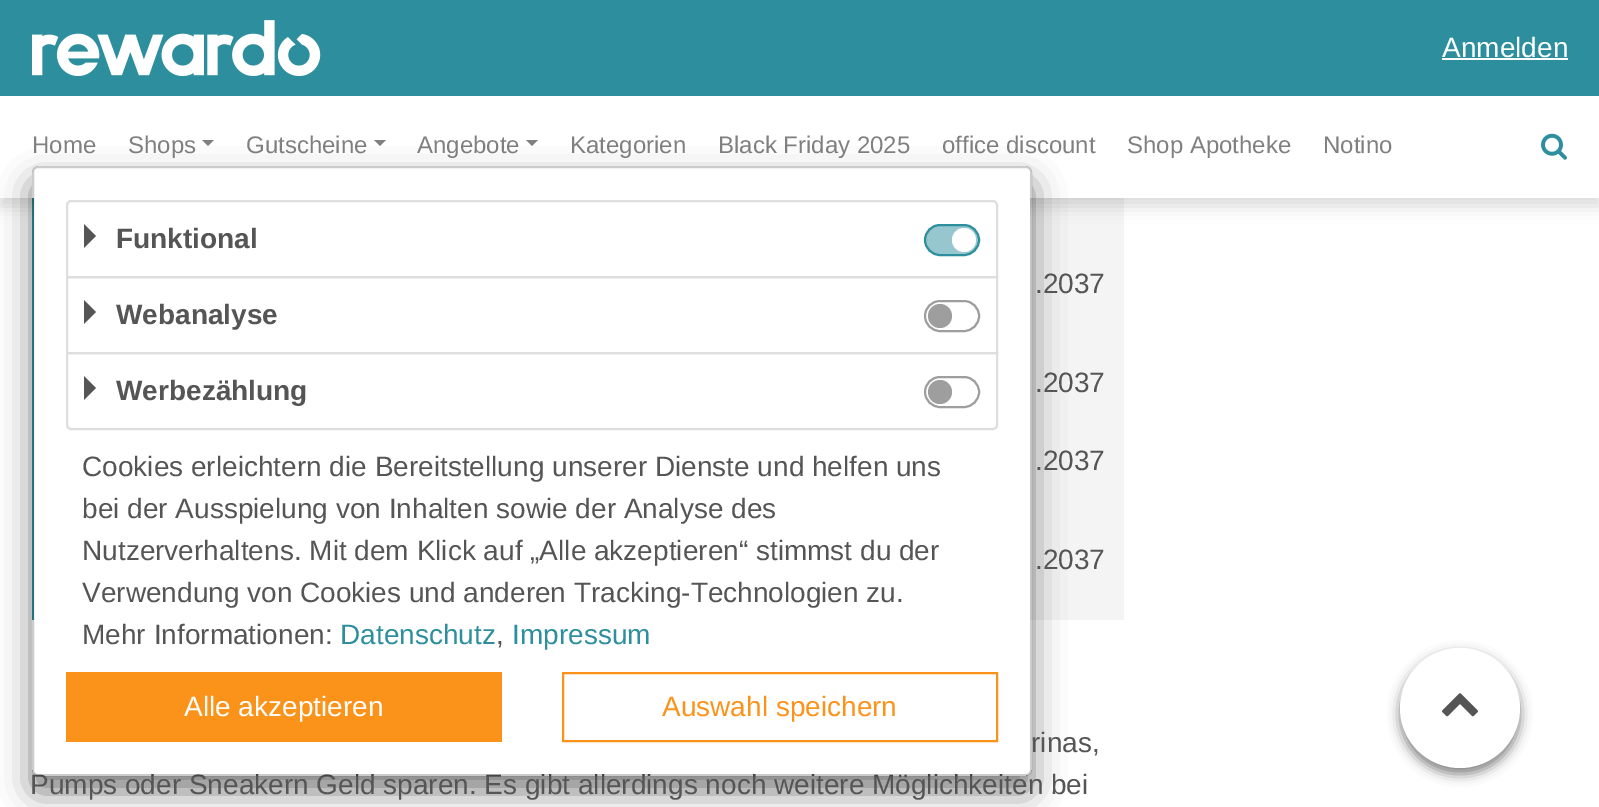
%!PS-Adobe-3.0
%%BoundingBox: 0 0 1599 807
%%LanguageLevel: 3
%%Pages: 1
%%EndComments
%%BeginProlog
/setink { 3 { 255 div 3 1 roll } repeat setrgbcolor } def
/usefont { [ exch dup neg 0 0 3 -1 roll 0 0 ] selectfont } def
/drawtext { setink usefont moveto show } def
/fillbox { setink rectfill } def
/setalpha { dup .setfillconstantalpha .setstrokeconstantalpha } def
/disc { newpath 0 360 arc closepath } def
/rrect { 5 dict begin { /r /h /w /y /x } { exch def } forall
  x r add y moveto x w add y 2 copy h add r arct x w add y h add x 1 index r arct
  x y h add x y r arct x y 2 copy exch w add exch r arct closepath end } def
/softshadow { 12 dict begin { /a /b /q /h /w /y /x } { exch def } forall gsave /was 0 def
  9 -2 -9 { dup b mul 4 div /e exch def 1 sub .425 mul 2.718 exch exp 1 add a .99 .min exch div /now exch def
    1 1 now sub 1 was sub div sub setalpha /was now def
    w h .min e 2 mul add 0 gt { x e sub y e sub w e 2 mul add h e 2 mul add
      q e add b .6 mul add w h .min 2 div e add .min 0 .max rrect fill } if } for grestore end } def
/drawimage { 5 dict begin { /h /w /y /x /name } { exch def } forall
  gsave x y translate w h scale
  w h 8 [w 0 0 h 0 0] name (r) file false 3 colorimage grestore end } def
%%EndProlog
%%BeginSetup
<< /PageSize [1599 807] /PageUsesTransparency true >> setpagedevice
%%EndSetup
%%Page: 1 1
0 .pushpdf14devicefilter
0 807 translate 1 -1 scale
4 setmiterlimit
0 0 1599 807 255 255 255 fillbox
32 198 2 422 45 143 158 fillbox
1030 198 94 422 244 244 244 fillbox
0 0 0 setink
0 8 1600 198 0 8 0.15 softshadow
0 0 1599 96 45 143 158 fillbox
(assets/img1.rgb) 32 20 289 57 drawimage
(Anmelden) 1442 57 /LiberationSans-Regular 28 255 255 255 drawtext
1442 58 126 2 255 255 255 fillbox
0 96 1599 102 255 255 255 fillbox
(Home) 32 153 /LiberationSans-Regular 24 128 128 128 drawtext
(Shops) 128 153 /LiberationSans-Regular 24 128 128 128 drawtext
202 140 moveto 214 140 lineto 208 146 lineto closepath fill
(Gutscheine) 246 153 /LiberationSans-Regular 24 128 128 128 drawtext
374 140 moveto 386 140 lineto 380 146 lineto closepath fill
(Angebote) 417 153 /LiberationSans-Regular 24 128 128 128 drawtext
526 140 moveto 538 140 lineto 532 146 lineto closepath fill
(Kategorien) 570 153 /LiberationSans-Regular 24 128 128 128 drawtext
(Black Friday 2025) 718 153 /LiberationSans-Regular 24 128 128 128 drawtext
(office discount) 942 153 /LiberationSans-Regular 24 128 128 128 drawtext
(Shop Apotheke) 1127 153 /LiberationSans-Regular 24 128 128 128 drawtext
(Notino) 1323 153 /LiberationSans-Regular 24 128 128 128 drawtext
(assets/img2.rgb) 1541 133 26 27 drawimage
gsave
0 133 moveto 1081 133 lineto 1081 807 lineto 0 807 lineto closepath 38 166 moveto 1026 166 lineto 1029.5 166 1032 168.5 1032 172 curveto 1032 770 lineto 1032 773.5 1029.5 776 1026 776 curveto 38 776 lineto 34.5 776 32 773.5 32 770 curveto 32 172 lineto 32 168.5 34.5 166 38 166 curveto closepath eoclip newpath
0 0 0 setink
32 182 1000 610 6 16 0.5 softshadow
grestore
(Pumps oder Sneakern Geld sparen. Es gibt allerdings noch weitere Möglichkeiten bei) 30 794 /LiberationSans-Regular 28 85 85 85 drawtext
255 255 255 setink
34 168 996 606 4 rrect fill
0.2 setalpha
0 0 0 setink
2 setlinewidth
33 167 998 608 5 rrect stroke
1 setalpha
222 222 222 setink
71 201 moveto 993 201 lineto 995 201 997 203 997 205 curveto 997 277 lineto 67 277 lineto 67 205 lineto 67 203 69 201 71 201 curveto closepath stroke
85 85 85 setink
84 248 moveto 84 224 lineto 96 236 lineto closepath fill
(Funktional) 116 248 /LiberationSans-Bold 28 85 85 85 drawtext
150 199 207 setink
925 225 54 30 15 rrect gsave fill grestore
45 143 158 setink
stroke
255 255 255 setink
964 240 12 disc fill
222 222 222 setink
67 277 930 76 rectstroke
85 85 85 setink
84 324 moveto 84 300 lineto 96 312 lineto closepath fill
(Webanalyse) 116 324 /LiberationSans-Bold 28 85 85 85 drawtext
158 158 158 setink
925 301 54 30 15 rrect stroke
940 316 12 disc fill
222 222 222 setink
67 353 moveto 997 353 lineto 997 425 lineto 997 427 995 429 993 429 curveto 71 429 lineto 69 429 67 427 67 425 curveto closepath stroke
85 85 85 setink
84 400 moveto 84 376 lineto 96 388 lineto closepath fill
(Werbezählung) 116 400 /LiberationSans-Bold 28 85 85 85 drawtext
158 158 158 setink
925 377 54 30 15 rrect stroke
940 392 12 disc fill
(Cookies erleichtern die Bereitstellung unserer Dienste und helfen uns) 82 476 /LiberationSans-Regular 28 85 85 85 drawtext
(bei der Ausspielung von Inhalten sowie der Analyse des) 82 518 /LiberationSans-Regular 28 85 85 85 drawtext
(Nutzerverhaltens. Mit dem Klick auf „Alle akzeptieren“ stimmst du der) 82 560 /LiberationSans-Regular 28 85 85 85 drawtext
(Verwendung von Cookies und anderen Tracking-Technologien zu.) 82 602 /LiberationSans-Regular 28 85 85 85 drawtext
(Mehr Informationen:) 82 644 /LiberationSans-Regular 28 85 85 85 drawtext
(Datenschutz) 340 644 /LiberationSans-Regular 28 45 143 158 drawtext
(,) 496 644 /LiberationSans-Regular 28 85 85 85 drawtext
(Impressum) 512 644 /LiberationSans-Regular 28 45 143 158 drawtext
66 672 436 70 251 147 27 fillbox
(Alle akzeptieren) 184 716 /LiberationSans-Regular 28 255 255 255 drawtext
251 147 27 setink
563 673 434 68 rectstroke
(Auswahl speichern) 662 716 /LiberationSans-Regular 28 251 147 27 drawtext
(.2037) 1035 293 /LiberationSans-Regular 28 85 85 85 drawtext
(.2037) 1035 392 /LiberationSans-Regular 28 85 85 85 drawtext
(.2037) 1035 470 /LiberationSans-Regular 28 85 85 85 drawtext
(.2037) 1035 569 /LiberationSans-Regular 28 85 85 85 drawtext
(rinas,) 1031 752 /LiberationSans-Regular 28 85 85 85 drawtext
0 0 0 setink
1400 654 120 120 60 6 0.5 softshadow
255 255 255 setink
1460 708 60 disc fill
(assets/img3.rgb) 1442 693 36 24 drawimage
.poppdf14devicefilter showpage
%%EOF
